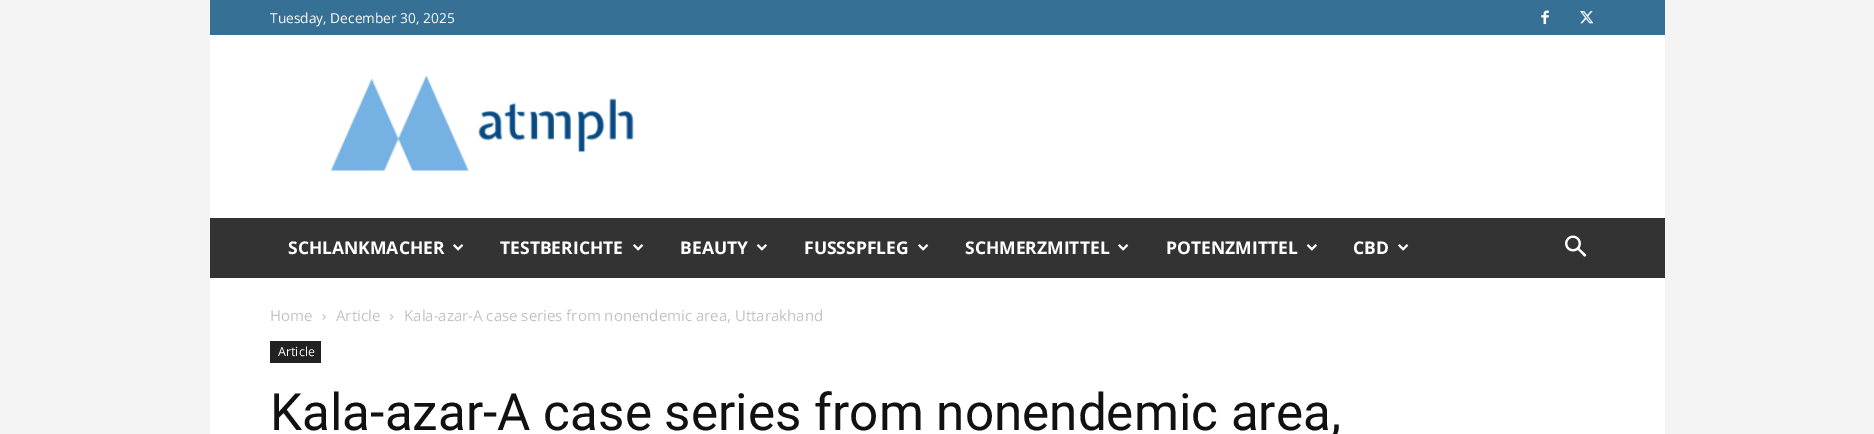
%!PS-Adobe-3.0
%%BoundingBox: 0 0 1874 434
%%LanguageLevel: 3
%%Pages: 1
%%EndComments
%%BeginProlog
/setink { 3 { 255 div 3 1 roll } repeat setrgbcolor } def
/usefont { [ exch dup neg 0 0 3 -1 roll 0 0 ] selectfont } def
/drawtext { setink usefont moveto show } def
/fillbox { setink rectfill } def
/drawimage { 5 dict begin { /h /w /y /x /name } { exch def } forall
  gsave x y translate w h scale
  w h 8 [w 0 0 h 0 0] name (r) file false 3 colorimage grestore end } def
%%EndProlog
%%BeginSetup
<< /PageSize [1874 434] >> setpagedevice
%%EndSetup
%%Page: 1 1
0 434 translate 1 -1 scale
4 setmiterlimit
0 0 1874 434 244 244 244 fillbox
210 0 1455 35 55 112 149 fillbox
(Tuesday, December 30, 2025) 270 23 /OpenSans-Regular 13.75 255 255 255 drawtext
(assets/img1.rgb) 1541 10 8 15 drawimage
(assets/img2.rgb) 1580 11 14 13 drawimage
210 35 1455 183 255 255 255 fillbox
(assets/img3.rgb) 330 75 304 96 drawimage
210 218 1455 60 51 51 51 fillbox
(SCHLANKMACHER) 288 254 /OpenSans-Bold 17.5 255 255 255 drawtext
(assets/img4.rgb) 453 244 11 7 drawimage
(TESTBERICHTE) 500 254 /OpenSans-Bold 17.5 255 255 255 drawtext
(assets/img4.rgb) 633 244 11 7 drawimage
(BEAUTY) 680 254 /OpenSans-Bold 17.5 255 255 255 drawtext
(assets/img5.rgb) 756 244 11 7 drawimage
(FUSSSPFLEG) 804 254 /OpenSans-Bold 17.5 255 255 255 drawtext
(assets/img4.rgb) 918 244 11 7 drawimage
(SCHMERZMITTEL) 965 254 /OpenSans-Bold 17.5 255 255 255 drawtext
(assets/img4.rgb) 1118 244 11 7 drawimage
(POTENZMITTEL) 1166 254 /OpenSans-Bold 17.5 255 255 255 drawtext
(assets/img5.rgb) 1306 244 11 7 drawimage
(CBD) 1353 254 /OpenSans-Bold 17.5 255 255 255 drawtext
(assets/img4.rgb) 1398 244 11 7 drawimage
(assets/img6.rgb) 1565 235 22 22 drawimage
210 278 1455 156 255 255 255 fillbox
(Home) 270 321 /OpenSans-Regular 15 195 195 195 drawtext
(assets/img7.rgb) 322 314 4 6 drawimage
(Article) 336 321 /OpenSans-Regular 15 195 195 195 drawtext
(assets/img8.rgb) 390 314 4 6 drawimage
(Kala-azar-A case series from nonendemic area, Uttarakhand) 404 321 /OpenSans-Regular 15 195 195 195 drawtext
270 341 51 22 34 34 34 fillbox
(Article) 278 356 /OpenSans-Regular 12.5 255 255 255 drawtext
(Kala-azar-A case series from nonendemic area,) 270 430 /Roboto-Regular 51.25 17 17 17 drawtext
showpage
%%EOF
